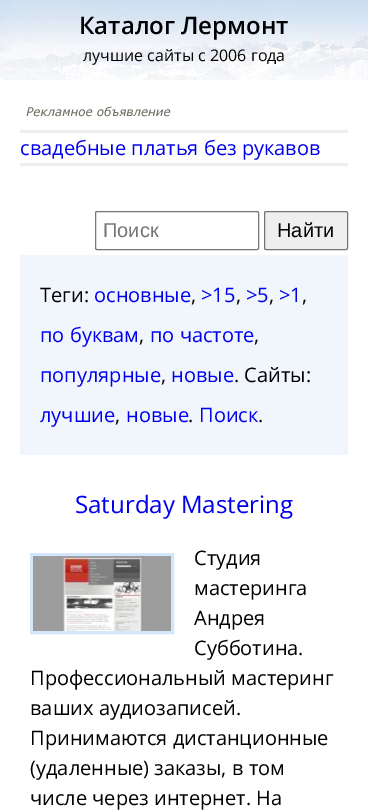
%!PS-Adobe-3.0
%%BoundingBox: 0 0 368 812
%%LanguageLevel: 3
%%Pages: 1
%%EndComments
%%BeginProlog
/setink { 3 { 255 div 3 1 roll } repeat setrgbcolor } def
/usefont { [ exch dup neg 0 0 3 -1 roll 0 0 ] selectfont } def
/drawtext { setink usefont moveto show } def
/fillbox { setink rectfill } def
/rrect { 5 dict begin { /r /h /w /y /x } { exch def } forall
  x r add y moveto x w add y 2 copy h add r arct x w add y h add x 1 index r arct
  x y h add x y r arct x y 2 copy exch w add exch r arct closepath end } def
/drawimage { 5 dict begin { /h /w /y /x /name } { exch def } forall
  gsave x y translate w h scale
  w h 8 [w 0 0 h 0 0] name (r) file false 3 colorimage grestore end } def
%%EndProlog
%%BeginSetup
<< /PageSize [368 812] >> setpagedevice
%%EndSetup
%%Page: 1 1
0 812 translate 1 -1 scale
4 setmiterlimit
0 0 368 812 255 255 255 fillbox
(assets/img1.rgb) 0 0 368 80 drawimage
(Каталог Лермонт) 79 34 /OpenSans-SemiBold 24 0 0 0 drawtext
(лучшие сайты с 2006 года) 83 61 /OpenSans-Regular 16 0 0 0 drawtext
(assets/img2.rgb) 26 106 145 11 drawimage
20 130 328 3 238 238 238 fillbox
20 163 328 3 238 238 238 fillbox
(свадебные платья без рукавов) 20 155 /OpenSans-Regular 20 0 0 238 drawtext
118 118 118 setink
95.5 211.5 163 38 1.5 rrect stroke
(Поиск) 103 237 /LiberationSans-Regular 20 117 117 117 drawtext
239 239 239 setink
264.5 211.5 83 38 1.5 rrect gsave fill grestore
118 118 118 setink
stroke
(Найти) 277 237 /LiberationSans-Regular 20 0 0 0 drawtext
20 255 328 200 241 246 252 fillbox
(Теги:) 40 302 /OpenSans-Regular 20 0 0 0 drawtext
(основные) 94 302 /OpenSans-Regular 20 0 0 238 drawtext
(,) 191 302 /OpenSans-Regular 20 0 0 0 drawtext
(>15) 201 302 /OpenSans-Regular 20 0 0 238 drawtext
(,) 236 302 /OpenSans-Regular 20 0 0 0 drawtext
(>5) 246 302 /OpenSans-Regular 20 0 0 238 drawtext
(,) 269 302 /OpenSans-Regular 20 0 0 0 drawtext
(>1) 279 302 /OpenSans-Regular 20 0 0 238 drawtext
(,) 302 302 /OpenSans-Regular 20 0 0 0 drawtext
(по буквам) 40 342 /OpenSans-Regular 20 0 0 238 drawtext
(,) 139 342 /OpenSans-Regular 20 0 0 0 drawtext
(по частоте) 150 342 /OpenSans-Regular 20 0 0 238 drawtext
(,) 254 342 /OpenSans-Regular 20 0 0 0 drawtext
(популярные) 40 382 /OpenSans-Regular 20 0 0 238 drawtext
(,) 161 382 /OpenSans-Regular 20 0 0 0 drawtext
(новые) 171 382 /OpenSans-Regular 20 0 0 238 drawtext
(. Сайты:) 234 382 /OpenSans-Regular 20 0 0 0 drawtext
(лучшие) 40 422 /OpenSans-Regular 20 0 0 238 drawtext
(,) 115 422 /OpenSans-Regular 20 0 0 0 drawtext
(новые) 126 422 /OpenSans-Regular 20 0 0 238 drawtext
(.) 188 422 /OpenSans-Regular 20 0 0 0 drawtext
(Поиск) 199 422 /OpenSans-Regular 20 0 0 238 drawtext
(.) 258 422 /OpenSans-Regular 20 0 0 0 drawtext
(Saturday Mastering) 75 513 /OpenSans-Regular 24 0 0 238 drawtext
212 230 252 setink
3 setlinewidth
31.5 554.5 141 78 rectstroke
(assets/img3.rgb) 33 556 138 75 drawimage
(Студия) 194 565 /OpenSans-Regular 20 0 0 0 drawtext
(мастеринга) 194 595 /OpenSans-Regular 20 0 0 0 drawtext
(Андрея) 194 625 /OpenSans-Regular 20 0 0 0 drawtext
(Субботина.) 194 655 /OpenSans-Regular 20 0 0 0 drawtext
(Профессиональный мастеринг) 30 685 /OpenSans-Regular 20 0 0 0 drawtext
(ваших аудиозаписей.) 30 715 /OpenSans-Regular 20 0 0 0 drawtext
(Принимаются дистанционные) 30 745 /OpenSans-Regular 20 0 0 0 drawtext
(\(удаленные\) заказы, в том) 30 775 /OpenSans-Regular 20 0 0 0 drawtext
(числе через интернет. На) 30 805 /OpenSans-Regular 20 0 0 0 drawtext
showpage
%%EOF
